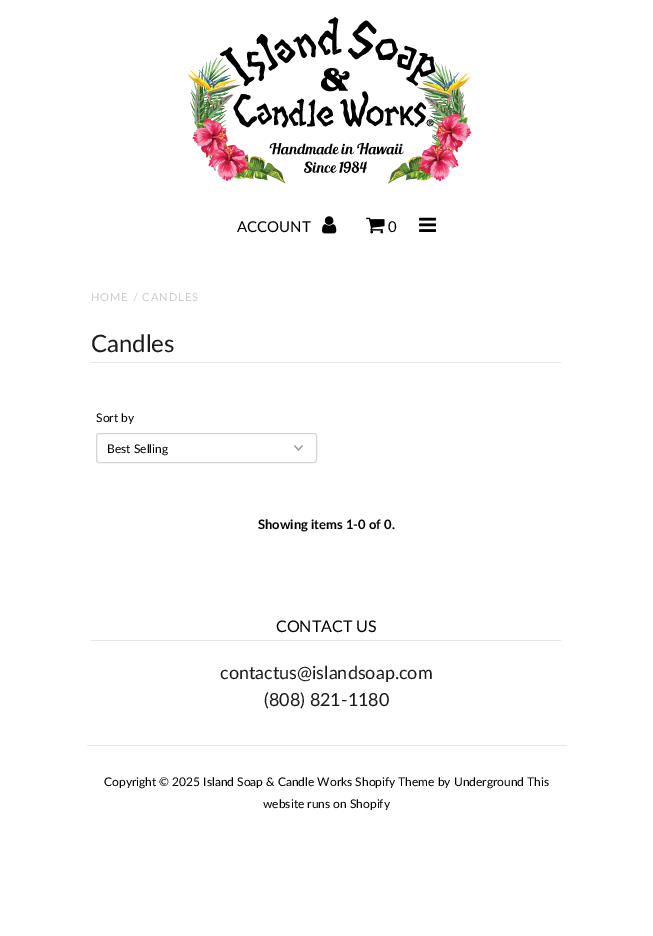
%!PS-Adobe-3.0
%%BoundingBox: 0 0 653 936
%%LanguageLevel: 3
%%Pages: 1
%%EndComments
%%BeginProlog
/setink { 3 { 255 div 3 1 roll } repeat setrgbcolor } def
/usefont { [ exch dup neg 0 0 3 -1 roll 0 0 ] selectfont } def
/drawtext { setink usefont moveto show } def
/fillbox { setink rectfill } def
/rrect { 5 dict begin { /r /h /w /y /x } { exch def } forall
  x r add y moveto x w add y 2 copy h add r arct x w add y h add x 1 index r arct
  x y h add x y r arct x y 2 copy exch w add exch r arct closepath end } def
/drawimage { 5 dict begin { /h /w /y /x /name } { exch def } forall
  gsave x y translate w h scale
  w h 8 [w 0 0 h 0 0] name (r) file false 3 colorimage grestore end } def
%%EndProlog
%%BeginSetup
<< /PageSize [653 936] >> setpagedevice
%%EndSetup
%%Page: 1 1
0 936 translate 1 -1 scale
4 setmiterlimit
0 0 653 936 255 255 255 fillbox
(assets/img1.rgb) 187 16 285 168 drawimage
(ACCOUNT) 237 232 /Lato-Regular 15 0 0 0 drawtext
(assets/img2.rgb) 322 216 15 18 drawimage
(assets/img3.rgb) 366 217 19 17 drawimage
(0) 388 232 /Lato-Regular 15 0 0 0 drawtext
(assets/img4.rgb) 419 217 17 15 drawimage
/Lato-Regular 11 usefont
204 204 204 setink
91 301 moveto 1 0 (HOME / CANDLES) ashow
91 362 470 1 229 229 229 fillbox
(Candles) 91 352 /Lato-Regular 24 29 28 27 drawtext
(Sort by) 96 422 /Lato-Regular 12 0 0 0 drawtext
(assets/img5.rgb) 294 445 9 6 drawimage
213 213 213 setink
96.5 433.5 220 29 2.5 rrect stroke
(Best Selling) 107 453 /Lato-Regular 12 0 0 0 drawtext
(Showing items 1-0 of 0.) 258 529 /Lato-Bold 13 0 0 0 drawtext
91 640 470 1 229 229 229 fillbox
(CONTACT US) 276 632 /Lato-Regular 16 0 0 0 drawtext
(contactus@islandsoap.com) 220 679 /Lato-Regular 18 29 28 27 drawtext
(\(808\) 821-1180) 264 706 /Lato-Regular 18 29 28 27 drawtext
87 745 480 1 229 229 229 fillbox
(Copyright © 2025 Island Soap & Candle Works Shopify Theme by Underground This) 104 786 /Lato-Regular 12 0 0 0 drawtext
(website runs on Shopify) 263 808 /Lato-Regular 12 0 0 0 drawtext
showpage
%%EOF
